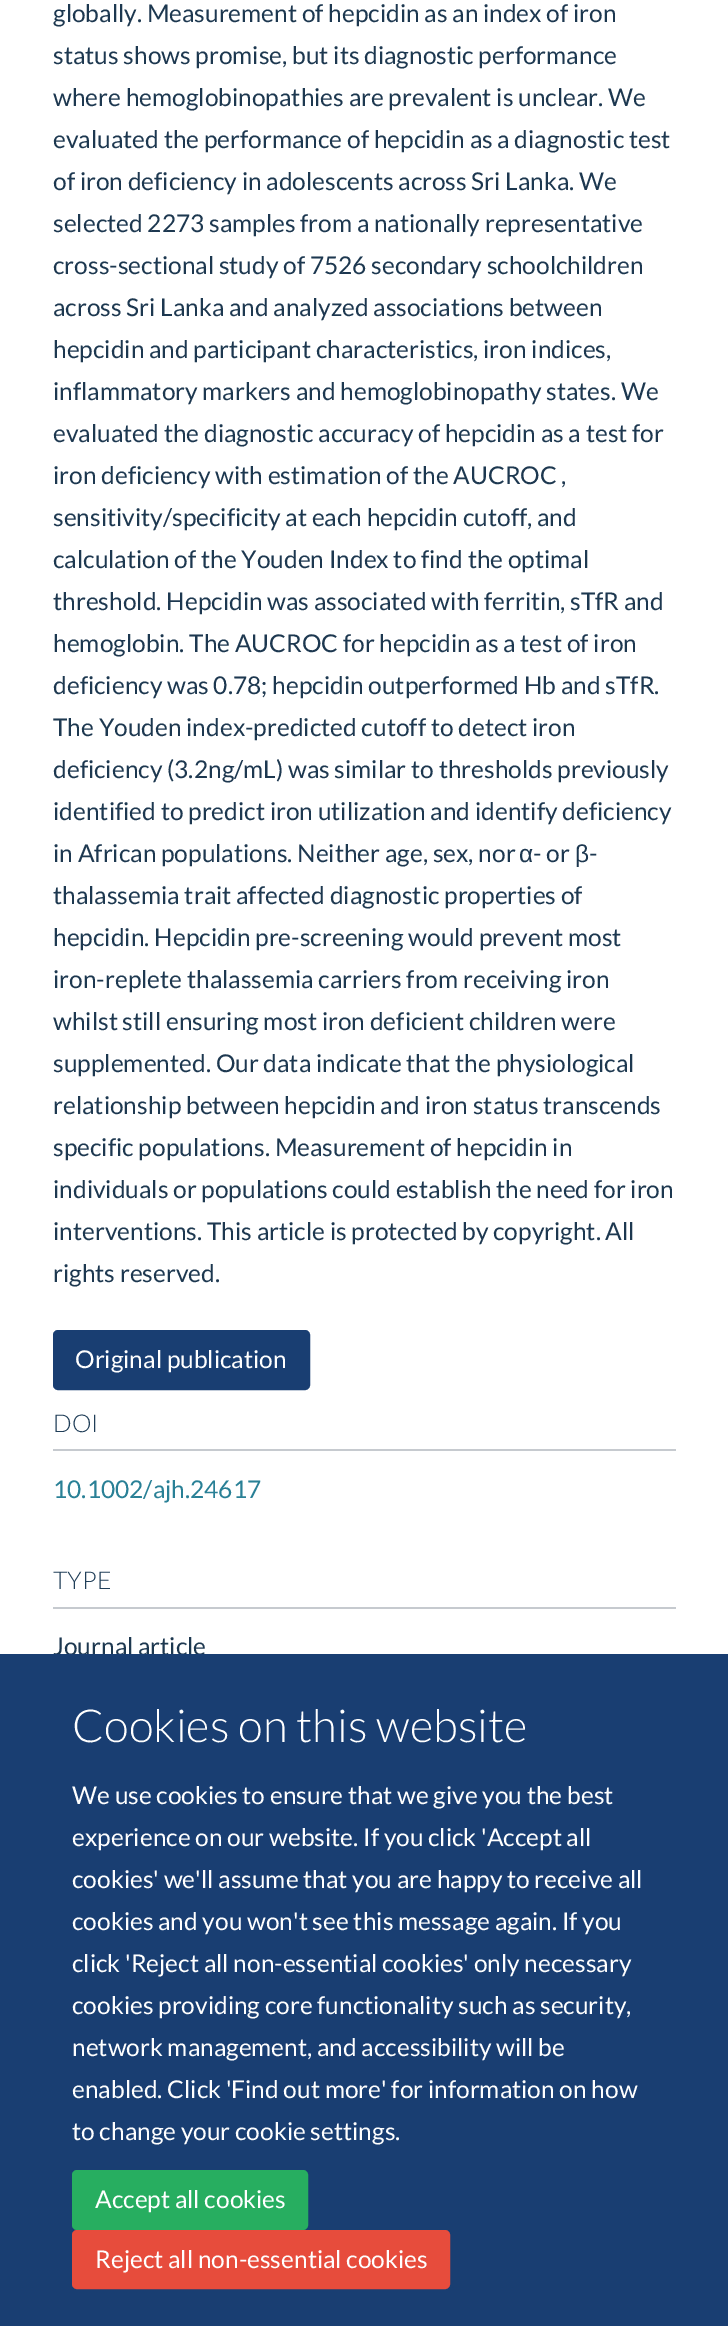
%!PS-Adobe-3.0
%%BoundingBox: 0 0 728 2326
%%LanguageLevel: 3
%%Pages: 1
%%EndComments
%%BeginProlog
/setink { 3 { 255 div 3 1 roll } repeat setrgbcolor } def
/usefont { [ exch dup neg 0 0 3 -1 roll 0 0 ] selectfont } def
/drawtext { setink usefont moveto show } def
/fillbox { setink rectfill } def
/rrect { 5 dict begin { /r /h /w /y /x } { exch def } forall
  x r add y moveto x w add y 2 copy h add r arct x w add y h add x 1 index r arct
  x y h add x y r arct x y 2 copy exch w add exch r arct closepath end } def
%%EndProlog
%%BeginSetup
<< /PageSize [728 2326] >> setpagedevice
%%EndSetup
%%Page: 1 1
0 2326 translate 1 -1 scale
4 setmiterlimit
0 0 728 2326 255 255 255 fillbox
(globally. Measurement of hepcidin as an index of iron) 53 22 /Lato-Regular 24.5 29 56 80 drawtext
(status shows promise, but its diagnostic performance) 53 64 /Lato-Regular 24.5 29 56 80 drawtext
(where hemoglobinopathies are prevalent is unclear. We) 53 106 /Lato-Regular 24.5 29 56 80 drawtext
(evaluated the performance of hepcidin as a diagnostic test) 53 148 /Lato-Regular 24.5 29 56 80 drawtext
(of iron deficiency in adolescents across Sri Lanka. We) 53 190 /Lato-Regular 24.5 29 56 80 drawtext
(selected 2273 samples from a nationally representative) 53 232 /Lato-Regular 24.5 29 56 80 drawtext
(cross-sectional study of 7526 secondary schoolchildren) 53 274 /Lato-Regular 24.5 29 56 80 drawtext
(across Sri Lanka and analyzed associations between) 53 316 /Lato-Regular 24.5 29 56 80 drawtext
(hepcidin and participant characteristics, iron indices,) 53 358 /Lato-Regular 24.5 29 56 80 drawtext
(inflammatory markers and hemoglobinopathy states. We) 53 400 /Lato-Regular 24.5 29 56 80 drawtext
(evaluated the diagnostic accuracy of hepcidin as a test for) 53 442 /Lato-Regular 24.5 29 56 80 drawtext
(iron deficiency with estimation of the AUCROC ,) 53 484 /Lato-Regular 24.5 29 56 80 drawtext
(sensitivity/specificity at each hepcidin cutoff, and) 53 526 /Lato-Regular 24.5 29 56 80 drawtext
(calculation of the Youden Index to find the optimal) 53 568 /Lato-Regular 24.5 29 56 80 drawtext
(threshold. Hepcidin was associated with ferritin, sTfR and) 53 610 /Lato-Regular 24.5 29 56 80 drawtext
(hemoglobin. The AUCROC for hepcidin as a test of iron) 53 652 /Lato-Regular 24.5 29 56 80 drawtext
(deficiency was 0.78; hepcidin outperformed Hb and sTfR.) 53 694 /Lato-Regular 24.5 29 56 80 drawtext
(The Youden index-predicted cutoff to detect iron) 53 736 /Lato-Regular 24.5 29 56 80 drawtext
(deficiency \(3.2ng/mL\) was similar to thresholds previously) 53 778 /Lato-Regular 24.5 29 56 80 drawtext
(identified to predict iron utilization and identify deficiency) 53 820 /Lato-Regular 24.5 29 56 80 drawtext
(in African populations. Neither age, sex, nor) 53 862 /Lato-Regular 24.5 29 56 80 drawtext
(α) 519 862 /LiberationSans-Regular 24.5 29 56 80 drawtext
(- or) 533 862 /Lato-Regular 24.5 29 56 80 drawtext
(β) 575 862 /LiberationSans-Regular 24.5 29 56 80 drawtext
(-) 589 862 /Lato-Regular 24.5 29 56 80 drawtext
(thalassemia trait affected diagnostic properties of) 53 904 /Lato-Regular 24.5 29 56 80 drawtext
(hepcidin. Hepcidin pre-screening would prevent most) 53 946 /Lato-Regular 24.5 29 56 80 drawtext
(iron-replete thalassemia carriers from receiving iron) 53 988 /Lato-Regular 24.5 29 56 80 drawtext
(whilst still ensuring most iron deficient children were) 53 1030 /Lato-Regular 24.5 29 56 80 drawtext
(supplemented. Our data indicate that the physiological) 53 1072 /Lato-Regular 24.5 29 56 80 drawtext
(relationship between hepcidin and iron status transcends) 53 1114 /Lato-Regular 24.5 29 56 80 drawtext
(specific populations. Measurement of hepcidin in) 53 1156 /Lato-Regular 24.5 29 56 80 drawtext
(individuals or populations could establish the need for iron) 53 1198 /Lato-Regular 24.5 29 56 80 drawtext
(interventions. This article is protected by copyright. All) 53 1240 /Lato-Regular 24.5 29 56 80 drawtext
(rights reserved.) 53 1282 /Lato-Regular 24.5 29 56 80 drawtext
25 62 114 setink
54 1331 255 58 4 rrect gsave fill grestore
2 setlinewidth
stroke
(Original publication) 75 1368 /Lato-Regular 24.5 255 255 255 drawtext
53 1449 623 2 198 202 207 fillbox
(DOI) 53 1432 /Lato-Light 24.5 32 62 88 drawtext
(10.1002/ajh.24617) 53 1498 /Lato-Regular 24.5 41 128 150 drawtext
53 1607 623 2 198 202 207 fillbox
(TYPE) 53 1589 /Lato-Light 24.5 32 62 88 drawtext
(Journal article) 53 1655 /Lato-Regular 24.5 29 56 80 drawtext
0 1654 728 672 25 62 114 fillbox
(Cookies on this website) 72 1742 /Lato-Light 45.5 255 255 255 drawtext
(We use cookies to ensure that we give you the best) 72 1804 /Lato-Regular 24.5 255 255 255 drawtext
(experience on our website. If you click 'Accept all) 72 1846 /Lato-Regular 24.5 255 255 255 drawtext
(cookies' we'll assume that you are happy to receive all) 72 1888 /Lato-Regular 24.5 255 255 255 drawtext
(cookies and you won't see this message again. If you) 72 1930 /Lato-Regular 24.5 255 255 255 drawtext
(click 'Reject all non-essential cookies' only necessary) 72 1972 /Lato-Regular 24.5 255 255 255 drawtext
(cookies providing core functionality such as security,) 72 2014 /Lato-Regular 24.5 255 255 255 drawtext
(network management, and accessibility will be) 72 2056 /Lato-Regular 24.5 255 255 255 drawtext
(enabled. Click 'Find out more' for information on how) 72 2098 /Lato-Regular 24.5 255 255 255 drawtext
(to change your cookie settings.) 72 2140 /Lato-Regular 24.5 255 255 255 drawtext
39 174 96 setink
73 2171 234 58 4 rrect gsave fill grestore
stroke
(Accept all cookies) 95 2208 /Lato-Regular 24.5 255 255 255 drawtext
231 76 60 setink
73 2231 376 57 4 rrect gsave fill grestore
stroke
(Reject all non-essential cookies) 95 2268 /Lato-Regular 24.5 255 255 255 drawtext
showpage
%%EOF
